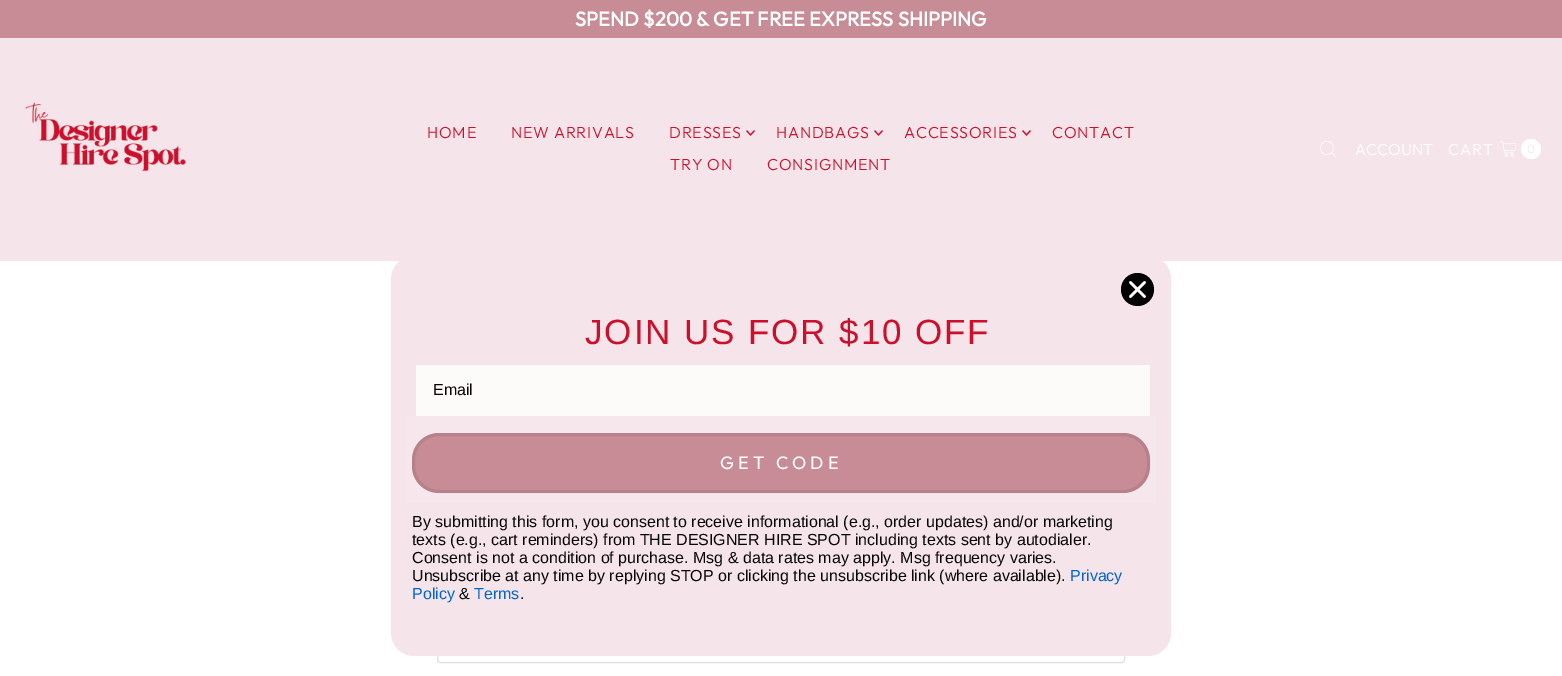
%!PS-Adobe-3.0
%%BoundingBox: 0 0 1562 676
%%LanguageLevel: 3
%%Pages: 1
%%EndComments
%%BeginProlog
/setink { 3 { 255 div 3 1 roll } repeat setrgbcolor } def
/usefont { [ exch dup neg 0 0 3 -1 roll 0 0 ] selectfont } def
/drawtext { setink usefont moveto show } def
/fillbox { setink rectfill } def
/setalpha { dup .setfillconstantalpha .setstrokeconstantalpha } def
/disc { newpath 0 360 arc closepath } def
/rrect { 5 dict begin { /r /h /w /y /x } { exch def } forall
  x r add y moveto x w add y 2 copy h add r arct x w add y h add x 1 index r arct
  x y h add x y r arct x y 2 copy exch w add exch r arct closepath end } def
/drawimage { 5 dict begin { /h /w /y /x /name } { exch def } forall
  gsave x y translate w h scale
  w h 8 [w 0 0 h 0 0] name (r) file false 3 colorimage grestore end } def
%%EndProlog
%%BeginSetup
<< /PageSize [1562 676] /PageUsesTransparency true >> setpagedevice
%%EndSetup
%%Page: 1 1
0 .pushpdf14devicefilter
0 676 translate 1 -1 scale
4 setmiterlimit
0 0 1562 676 255 255 255 fillbox
0 0 1562 38 199 140 150 fillbox
(SPEND $200 & GET FREE EXPRESS SHIPPING) 575 26 /Outfit-Bold 20 255 255 255 drawtext
0 38 1562 223 245 228 234 fillbox
(assets/img1.rgb) 25 102 161 70 drawimage
/Outfit-Light 16 usefont
203 16 44 setink
427 138 moveto 0.75 0 (HOME) ashow
511 138 moveto 0.75 0 (NEW ARRIVALS) ashow
669 138 moveto 0.75 0 (DRESSES) ashow
(assets/img2.rgb) 746 130 9 6 drawimage
776 138 moveto 0.75 0 (HANDBAGS) ashow
(assets/img2.rgb) 874 130 9 6 drawimage
904 138 moveto 0.75 0 (ACCESSORIES) ashow
(assets/img2.rgb) 1022 130 9 6 drawimage
1052 138 moveto 0.75 0 (CONTACT) ashow
670 170 moveto 0.75 0 (TRY ON) ashow
767 170 moveto 0.75 0 (CONSIGNMENT) ashow
(assets/img3.rgb) 1320 141 16 16 drawimage
(ACCOUNT) 1355 155 /Outfit-Light 16 255 255 255 drawtext
1448 155 moveto 1 0 (CART) ashow
(assets/img4.rgb) 1500 141 16 16 drawimage
1531 149 10 disc fill
(0) 1527 153 /Outfit-Light 12 245 228 234 drawtext
223 223 223 setink
437.5 613.5 687 49 2.5 rrect stroke
245 228 234 setink
391 256 780 400 23 rrect fill
0 0 0 setink
1137.5 289.5 16.5 disc fill
255 255 255 setink
2.6 setlinewidth
1 setlinecap
1 setlinejoin
1130.5 282.5 moveto 1144.5 296.5 lineto 1130.5 296.5 moveto 1144.5 282.5 lineto closepath stroke
/LiberationSans-Regular 35 usefont
203 16 44 setink
585 344 moveto 1.9 0 (JOIN US FOR $10 OFF) ashow
416 365 734 51 253 250 250 fillbox
(Email) 433 395 /LiberationSans-Regular 16 10 0 0 drawtext
406 416 750 87 246 231 236 fillbox
199 140 150 setink
412 433 738 60 27 rrect fill
0.1 setalpha
33 29 28 setink
3 setlinewidth
0 setlinecap
0 setlinejoin
413.5 434.5 735 57 25.5 rrect stroke
/Outfit-Regular 18 usefont
1 setalpha
255 255 255 setink
720 469 moveto 4 0 (GET CODE) ashow
(By submitting this form, you consent to receive informational \(e.g., order updates\) and/or marketing) 412 527 /LiberationSans-Regular 16 6 6 6 drawtext
(texts \(e.g., cart reminders\) from THE DESIGNER HIRE SPOT including texts sent by autodialer.) 412 545 /LiberationSans-Regular 16 6 6 6 drawtext
(Consent is not a condition of purchase. Msg & data rates may apply. Msg frequency varies.) 412 563 /LiberationSans-Regular 16 6 6 6 drawtext
(Unsubscribe at any time by replying STOP or clicking the unsubscribe link \(where available\).) 412 581 /LiberationSans-Regular 16 6 6 6 drawtext
(Privacy) 1070 581 /LiberationSans-Regular 16 0 102 204 drawtext
(Policy) 412 599 /LiberationSans-Regular 16 0 102 204 drawtext
(&) 459 599 /LiberationSans-Regular 16 6 6 6 drawtext
(Terms) 474 599 /LiberationSans-Regular 16 0 102 204 drawtext
(.) 520 599 /LiberationSans-Regular 16 6 6 6 drawtext
.poppdf14devicefilter showpage
%%EOF
